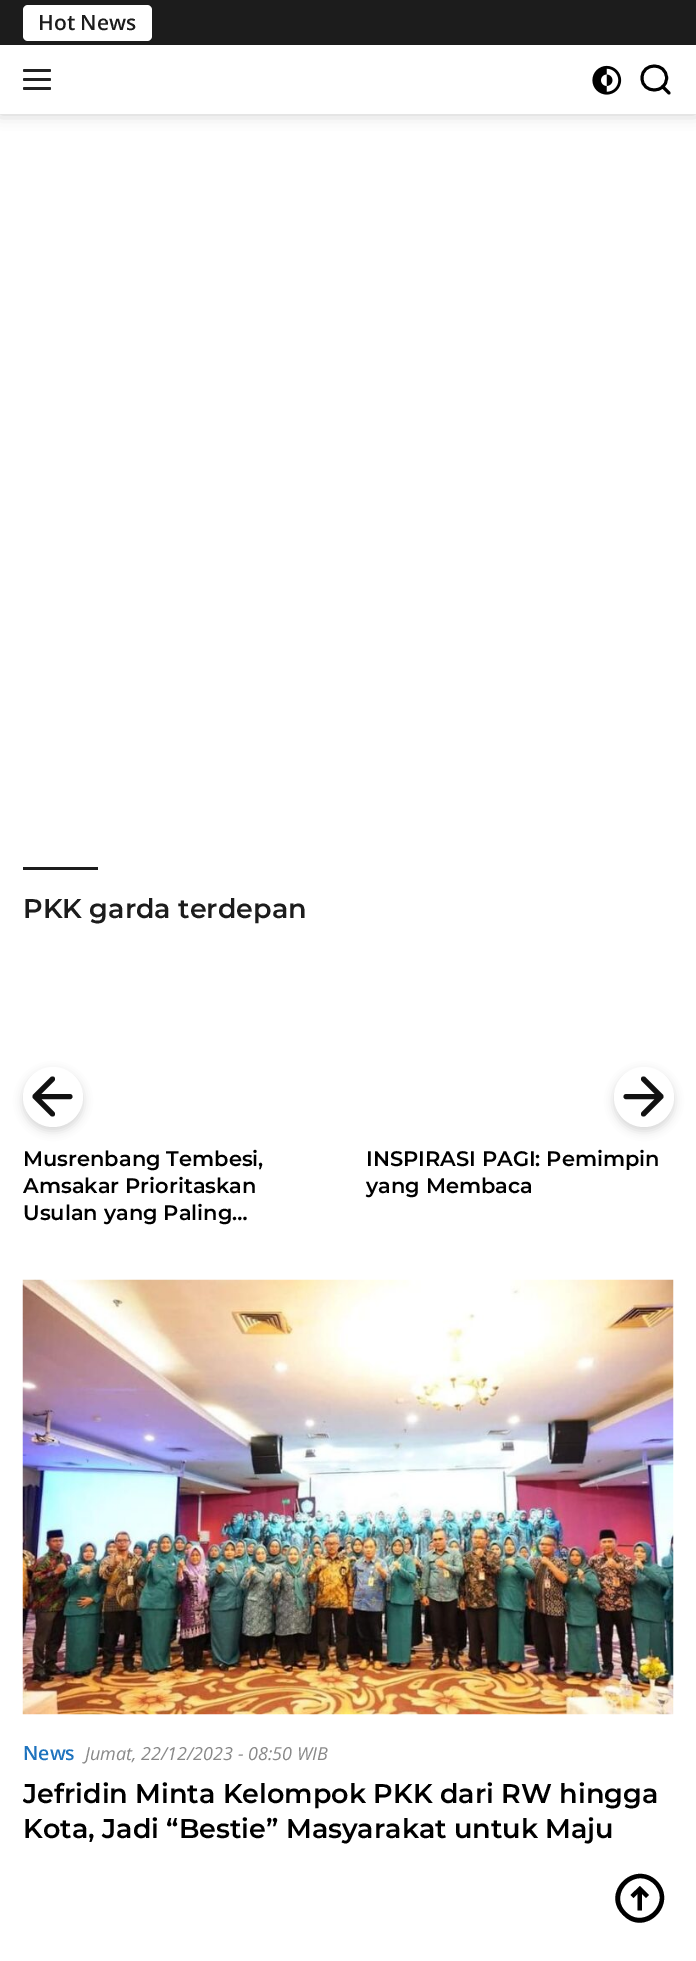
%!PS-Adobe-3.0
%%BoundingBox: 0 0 696 1961
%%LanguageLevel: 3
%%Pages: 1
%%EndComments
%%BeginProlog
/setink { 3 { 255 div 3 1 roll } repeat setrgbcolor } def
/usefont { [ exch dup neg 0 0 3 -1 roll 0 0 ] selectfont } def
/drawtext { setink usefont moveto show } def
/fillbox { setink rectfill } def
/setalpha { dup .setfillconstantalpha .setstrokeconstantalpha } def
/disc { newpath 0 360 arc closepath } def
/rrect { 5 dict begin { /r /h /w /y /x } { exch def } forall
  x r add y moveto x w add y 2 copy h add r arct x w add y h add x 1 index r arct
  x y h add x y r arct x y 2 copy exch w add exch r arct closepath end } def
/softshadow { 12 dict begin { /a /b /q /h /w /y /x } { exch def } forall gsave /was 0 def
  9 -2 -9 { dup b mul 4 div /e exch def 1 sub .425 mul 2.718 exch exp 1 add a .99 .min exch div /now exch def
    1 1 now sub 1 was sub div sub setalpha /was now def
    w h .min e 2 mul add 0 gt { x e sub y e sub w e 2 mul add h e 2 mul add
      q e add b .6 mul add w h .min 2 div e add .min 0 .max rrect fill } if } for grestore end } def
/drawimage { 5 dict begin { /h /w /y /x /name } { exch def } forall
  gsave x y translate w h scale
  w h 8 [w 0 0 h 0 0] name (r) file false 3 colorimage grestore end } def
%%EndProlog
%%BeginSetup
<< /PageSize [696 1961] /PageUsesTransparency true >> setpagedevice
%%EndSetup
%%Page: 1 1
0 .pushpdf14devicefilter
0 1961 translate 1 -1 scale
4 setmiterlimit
0 0 696 1961 255 255 255 fillbox
0 0 0 setink
0 0 696 114 0 7.5 0.2 softshadow
0 45 696 69 255 255 255 fillbox
0 0 696 45 28 28 28 fillbox
255 255 255 setink
23 5 129 36 5 rrect fill
(Hot News) 38 30 /OpenSans-SemiBold 21 28 28 28 drawtext
34 34 34 setink
23 69 28 3 1.5 rrect fill
23 78 28 3 1.5 rrect fill
23 87 28 3 1.5 rrect fill
(assets/img1.rgb) 592 65 30 30 drawimage
0 0 0 setink
2.9 setlinewidth
1 setlinecap
669 93 moveto 662.5 86.5 lineto 666.5 78 moveto 666.5 94 642 94 642 78 curveto 642 62 666.5 62 666.5 78 curveto closepath stroke
23 867 75 3 28 28 28 fillbox
(PKK garda terdepan) 23 918 /Montserrat-SemiBold 27 28 28 28 drawtext
51 51 51 setink
23 1071 60 60 30 4.5 0.2 softshadow
255 255 255 setink
53 1097 30 disc fill
17 17 17 setink
5 setlinewidth
1 setlinejoin
70 1096.5 moveto 35 1096.5 lineto 52.5 1114 moveto 35 1096.5 lineto 52.5 1079 lineto stroke
51 51 51 setink
614 1071 60 60 30 4.5 0.2 softshadow
255 255 255 setink
644 1097 30 disc fill
17 17 17 setink
626 1096.5 moveto 661 1096.5 lineto 643.5 1079 moveto 661 1096.5 lineto 643.5 1114 lineto stroke
(Musrenbang Tembesi,) 23 1166 /Montserrat-SemiBold 21 0 0 0 drawtext
(Amsakar Prioritaskan) 23 1193 /Montserrat-SemiBold 21 0 0 0 drawtext
(Usulan yang Paling…) 23 1220 /Montserrat-SemiBold 21 0 0 0 drawtext
(INSPIRASI PAGI: Pemimpin) 366 1166 /Montserrat-SemiBold 21 0 0 0 drawtext
(yang Membaca) 366 1193 /Montserrat-SemiBold 21 0 0 0 drawtext
(assets/img2.rgb) 22 1279 652 436 drawimage
(News) 23 1760 /OpenSans-SemiBold 19.5 30 115 190 drawtext
(Jumat, 22/12/2023 - 08:50 WIB) 85 1760 /OpenSans-Italic 18 136 136 136 drawtext
gsave
23 1778 651 70 rectclip
(Jefridin Minta Kelompok PKK dari RW hingga) 23 1803 /Montserrat-SemiBold 27 0 0 0 drawtext
grestore
(Kota, Jadi “Bestie” Masyarakat untuk Maju) 23 1838 /Montserrat-SemiBold 27 0 0 0 drawtext
646 1898 moveto 649 1895 lineto 640 1886 lineto 630.5 1895 lineto 633.5 1898 lineto 637.5 1894 lineto 637.5 1910.5 lineto 642 1910.5 lineto 642 1894 lineto closepath fill
657 1881 moveto 634 1859 600 1893 623 1915 curveto 645 1938 679 1904 657 1881 curveto closepath 654 1884 moveto 635 1866 608 1894 626 1912 curveto 644 1930 672 1903 654 1884 curveto closepath eofill
.poppdf14devicefilter showpage
%%EOF
